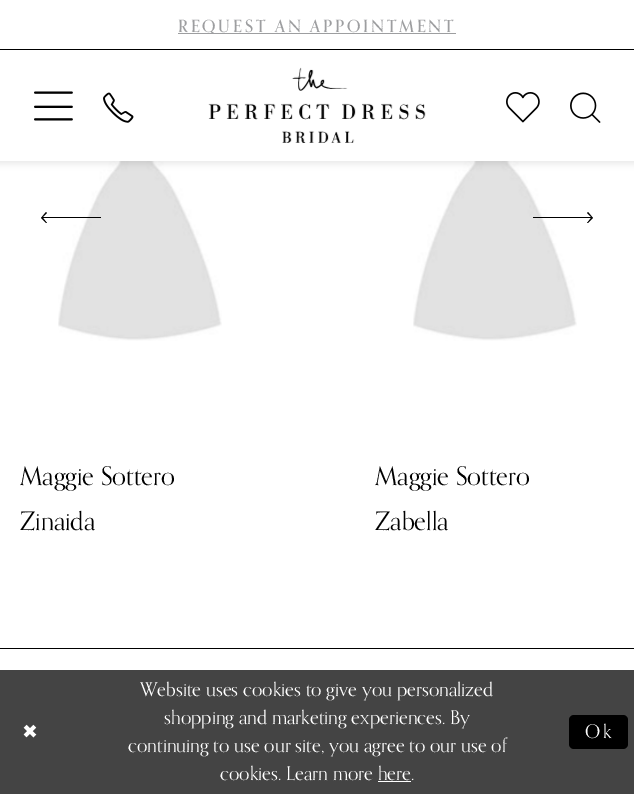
%!PS-Adobe-3.0
%%BoundingBox: 0 0 634 794
%%LanguageLevel: 3
%%Pages: 1
%%EndComments
%%BeginProlog
/setink { 3 { 255 div 3 1 roll } repeat setrgbcolor } def
/usefont { [ exch dup neg 0 0 3 -1 roll 0 0 ] selectfont } def
/drawtext { setink usefont moveto show } def
/fillbox { setink rectfill } def
/setalpha { dup .setfillconstantalpha .setstrokeconstantalpha } def
/rrect { 5 dict begin { /r /h /w /y /x } { exch def } forall
  x r add y moveto x w add y 2 copy h add r arct x w add y h add x 1 index r arct
  x y h add x y r arct x y 2 copy exch w add exch r arct closepath end } def
/softshadow { 12 dict begin { /a /b /q /h /w /y /x } { exch def } forall gsave /was 0 def
  9 -2 -9 { dup b mul 4 div /e exch def 1 sub .425 mul 2.718 exch exp 1 add a .99 .min exch div /now exch def
    1 1 now sub 1 was sub div sub setalpha /was now def
    w h .min e 2 mul add 0 gt { x e sub y e sub w e 2 mul add h e 2 mul add
      q e add b .6 mul add w h .min 2 div e add .min 0 .max rrect fill } if } for grestore end } def
/drawimage { 5 dict begin { /h /w /y /x /name } { exch def } forall
  gsave x y translate w h scale
  w h 8 [w 0 0 h 0 0] name (r) file false 3 colorimage grestore end } def
%%EndProlog
%%BeginSetup
<< /PageSize [634 794] /PageUsesTransparency true >> setpagedevice
%%EndSetup
%%Page: 1 1
0 .pushpdf14devicefilter
0 794 translate 1 -1 scale
4 setmiterlimit
0 0 634 794 255 255 255 fillbox
(assets/img6.rgb) 58 161 164 180 drawimage
(assets/img6.rgb) 413 161 164 180 drawimage
30 30 30 setink
-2 -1 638 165 0 3 0.1 softshadow
0 0 634 161 255 255 255 fillbox
0 49 634 1 0 0 0 fillbox
178 33 278 1 157 158 160 fillbox
/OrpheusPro-Medium 16.9 usefont
178 32 moveto 2.75 0 (REQUEST AN APPOINTMENT) ashow
(assets/img1.rgb) 34 91 39 30 drawimage
(assets/img2.rgb) 103 92 31 31 drawimage
(assets/img3.rgb) 208 67 218 76 drawimage
(assets/img4.rgb) 506 92 34 31 drawimage
(assets/img5.rgb) 570 92 31 31 drawimage
0 0 0 setink
101 217 moveto 43 217 lineto 47 213 lineto 46 212 lineto 41 218 lineto 46 223 lineto 47 223 lineto 43 218 lineto 101 218 lineto closepath fill
588 212 moveto 587 213 lineto 591 217 lineto 533 217 lineto 533 218 lineto 591 218 lineto 587 223 lineto 588 223 lineto 593 218 lineto closepath fill
(Maggie Sottero) 20 485 /OrpheusPro-Regular 25.5 0 0 0 drawtext
(Zinaida) 20 530 /OrpheusPro-Regular 25.5 0 0 0 drawtext
(Maggie Sottero) 375 485 /OrpheusPro-Regular 25.5 0 0 0 drawtext
(Zabella) 375 530 /OrpheusPro-Regular 25.5 0 0 0 drawtext
0 648 634 1 0 0 0 fillbox
0 670 634 124 68 68 68 fillbox
/DejaVuSans-Regular 19 usefont
255 255 255 setink
22 738 moveto 3 0 (✖) ashow
(Website uses cookies to give you personalized) 140 696 /OrpheusPro-Regular 19 255 255 255 drawtext
(shopping and marketing experiences. By) 164 724 /OrpheusPro-Regular 19 255 255 255 drawtext
(continuing to use our site, you agree to our use of) 128 752 /OrpheusPro-Regular 19 255 255 255 drawtext
(cookies. Learn more here.) 220 780 /OrpheusPro-Regular 19 255 255 255 drawtext
378 781 33 1 255 255 255 fillbox
0 0 0 setink
569 715 59 34 5 rrect fill
255 255 255 setink
585 738 moveto 3 0 (Ok) ashow
.poppdf14devicefilter showpage
%%EOF
